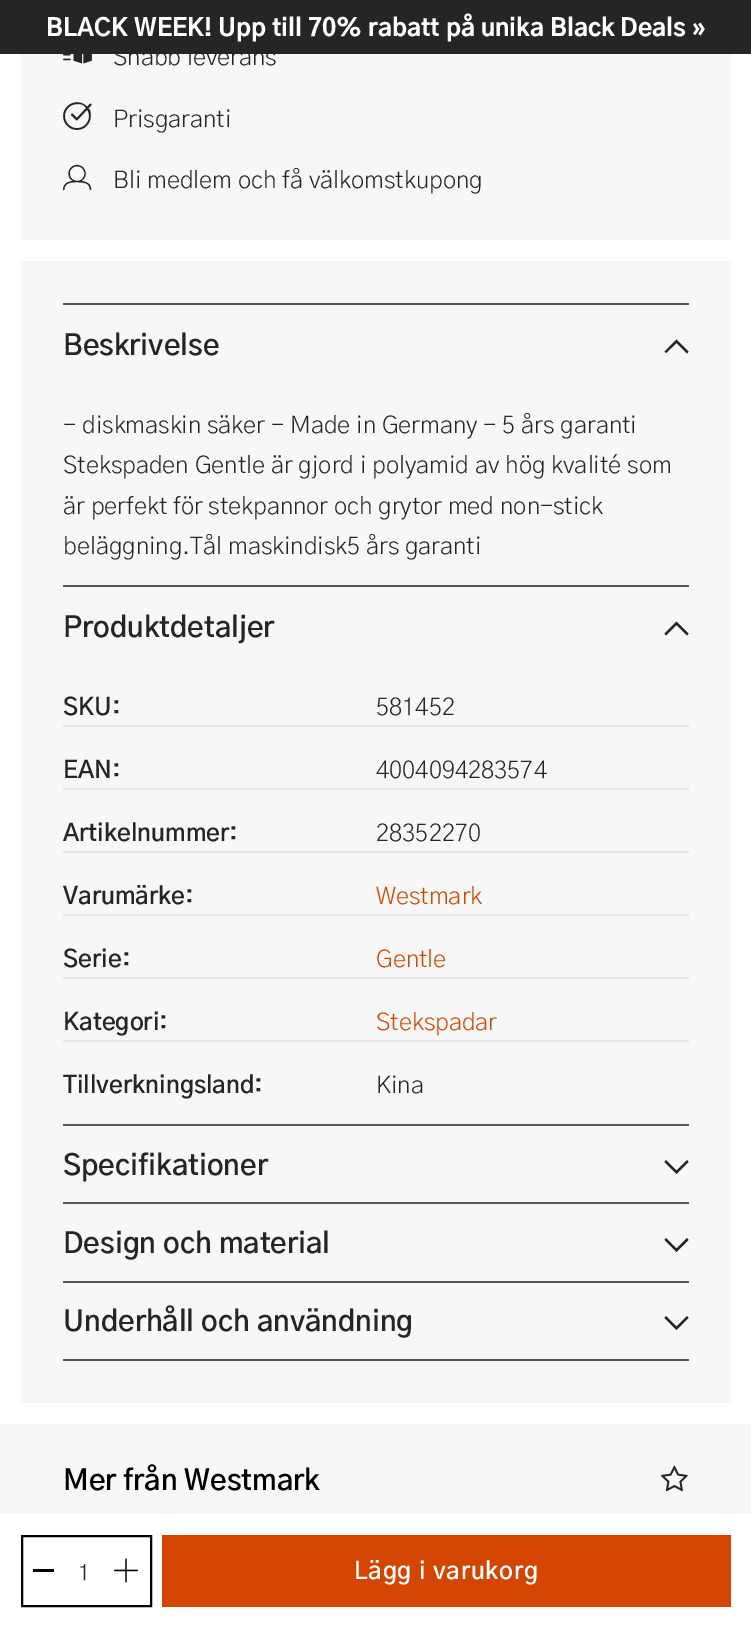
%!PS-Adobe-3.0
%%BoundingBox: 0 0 751 1627
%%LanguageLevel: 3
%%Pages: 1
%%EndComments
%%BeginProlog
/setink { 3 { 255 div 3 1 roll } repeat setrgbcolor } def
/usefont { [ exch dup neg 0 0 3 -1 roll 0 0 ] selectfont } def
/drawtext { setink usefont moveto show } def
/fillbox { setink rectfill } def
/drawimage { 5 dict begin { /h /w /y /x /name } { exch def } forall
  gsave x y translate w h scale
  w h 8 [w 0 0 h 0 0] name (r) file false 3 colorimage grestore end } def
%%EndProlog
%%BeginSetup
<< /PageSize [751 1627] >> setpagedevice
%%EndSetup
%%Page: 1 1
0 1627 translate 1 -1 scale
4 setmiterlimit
0 0 751 1627 255 255 255 fillbox
0 0 751 54 37 37 37 fillbox
(BLACK WEEK! Upp till 70% rabatt på unika Black Deals ») 46 36 /GothicA1-ExtraBold 24 255 255 255 drawtext
21 54 710 186 248 247 247 fillbox
(assets/img1.rgb) 63 54 29 10 drawimage
(Snabb leverans) 113 65 /GothicA1-Light 24 37 37 37 drawtext
(assets/img2.rgb) 63 102 29 28 drawimage
(Prisgaranti) 113 127 /GothicA1-Light 24 37 37 37 drawtext
(_) 63 192 /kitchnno-Regular 28.75 37 37 37 drawtext
(Bli medlem och få välkomstkupong) 113 188 /GothicA1-Light 24 37 37 37 drawtext
0 0 0 setink
2 setlinewidth
22 1536 129 70 rectstroke
33 1569 21 3 0 0 0 fillbox
(1) 78 1580 /GothicA1-Light 22 37 37 37 drawtext
(assets/img3.rgb) 114 1558 24 25 drawimage
162 1535 569 72 211 69 0 fillbox
/GothicA1-SemiBold 24 usefont
255 255 255 setink
354 1579 moveto 0.75 0 (Lägg i varukorg) ashow
21 261 710 1142 248 247 247 fillbox
63 303 626 2 85 85 85 fillbox
63 585 626 2 85 85 85 fillbox
(Beskrivelse) 63 355 /GothicA1-SemiBold 28.75 37 37 37 drawtext
676.5 339.5 moveto 664.5 351.5 lineto 666 353 lineto 676.5 343 lineto 687 353.5 lineto 688.5 351.5 lineto closepath fill
(- diskmaskin säker - Made in Germany - 5 års garanti) 63 433 /GothicA1-Light 24 37 37 37 drawtext
(Stekspaden Gentle är gjord i polyamid av hög kvalité som) 63 473 /GothicA1-Light 24 37 37 37 drawtext
(är perfekt för stekpannor och grytor med non-stick) 63 514 /GothicA1-Light 24 37 37 37 drawtext
(beläggning.Tål maskindisk5 års garanti) 63 554 /GothicA1-Light 24 37 37 37 drawtext
63 1124 626 2 85 85 85 fillbox
(Produktdetaljer) 63 637 /GothicA1-SemiBold 28.75 37 37 37 drawtext
676.5 621.5 moveto 664.5 633.5 lineto 666 635.5 lineto 676.5 625 lineto 687 635.5 lineto 688.5 633.5 lineto closepath fill
63 725 626 2 230 230 230 fillbox
(SKU:) 63 715 /GothicA1-SemiBold 24 37 37 37 drawtext
(581452) 376 715 /GothicA1-Light 24 37 37 37 drawtext
63 788 626 2 230 230 230 fillbox
(EAN:) 63 778 /GothicA1-SemiBold 24 37 37 37 drawtext
(4004094283574) 376 778 /GothicA1-Light 24 37 37 37 drawtext
63 851 626 2 230 230 230 fillbox
(Artikelnummer:) 63 841 /GothicA1-SemiBold 24 37 37 37 drawtext
(28352270) 376 841 /GothicA1-Light 24 37 37 37 drawtext
63 914 626 2 230 230 230 fillbox
(Varumärke:) 63 904 /GothicA1-SemiBold 24 37 37 37 drawtext
(Westmark) 376 904 /GothicA1-Light 24 211 69 0 drawtext
63 977 626 2 230 230 230 fillbox
(Serie:) 63 967 /GothicA1-SemiBold 24 37 37 37 drawtext
(Gentle) 376 967 /GothicA1-Light 24 211 69 0 drawtext
63 1040 626 2 230 230 230 fillbox
(Kategori:) 63 1030 /GothicA1-SemiBold 24 37 37 37 drawtext
(Stekspadar) 376 1030 /GothicA1-Light 24 211 69 0 drawtext
(Tillverkningsland:) 63 1093 /GothicA1-SemiBold 24 37 37 37 drawtext
(Kina) 376 1093 /GothicA1-Light 24 37 37 37 drawtext
63 1202 626 2 85 85 85 fillbox
(Specifikationer) 63 1175 /GothicA1-SemiBold 28.75 37 37 37 drawtext
676.5 1174 moveto 688.5 1162 lineto 687 1160 lineto 676.5 1170.5 lineto 666 1160 lineto 664.5 1162 lineto closepath fill
63 1281 626 2 85 85 85 fillbox
(Design och material) 63 1253 /GothicA1-SemiBold 28.75 37 37 37 drawtext
676.5 1252 moveto 688.5 1240 lineto 687 1238 lineto 676.5 1248.5 lineto 666 1238 lineto 664.5 1240 lineto closepath fill
63 1359 626 2 85 85 85 fillbox
(Underhåll och användning) 63 1331 /GothicA1-SemiBold 28.75 37 37 37 drawtext
676.5 1330 moveto 688.5 1318 lineto 687 1316 lineto 676.5 1326.5 lineto 666 1316 lineto 664.5 1318 lineto closepath fill
0 1424 751 90 248 247 247 fillbox
(Mer från Westmark) 63 1490 /GothicA1-SemiBold 28.75 0 0 0 drawtext
(assets/img4.rgb) 661 1465 27 27 drawimage
showpage
%%EOF
